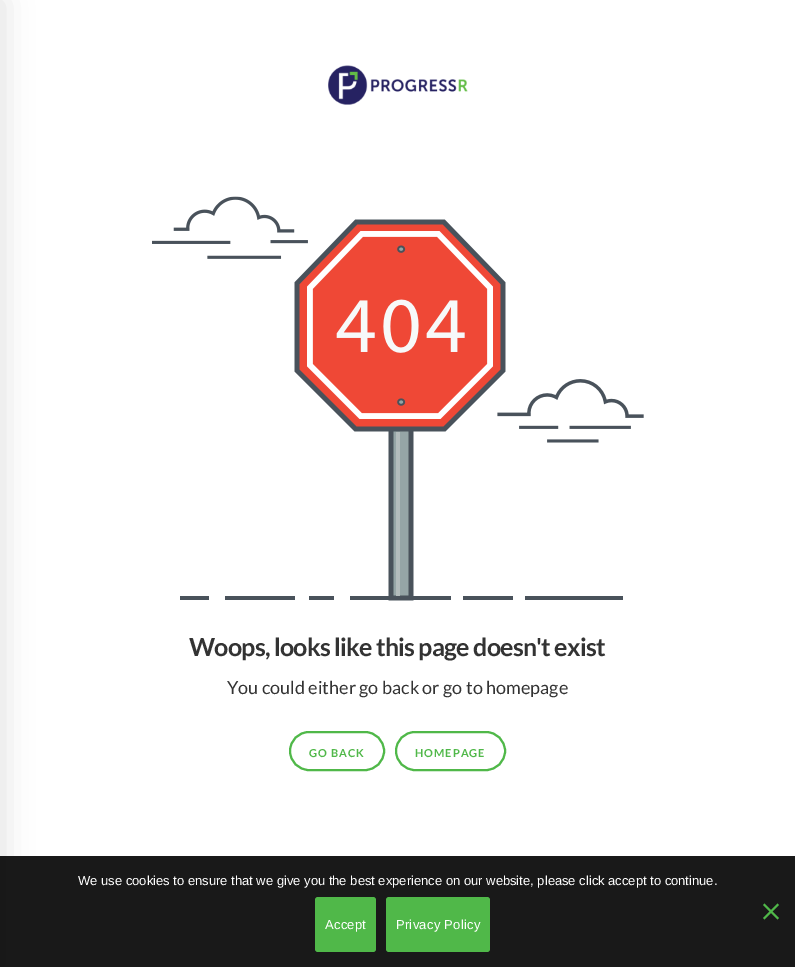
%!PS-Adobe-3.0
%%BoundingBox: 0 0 795 967
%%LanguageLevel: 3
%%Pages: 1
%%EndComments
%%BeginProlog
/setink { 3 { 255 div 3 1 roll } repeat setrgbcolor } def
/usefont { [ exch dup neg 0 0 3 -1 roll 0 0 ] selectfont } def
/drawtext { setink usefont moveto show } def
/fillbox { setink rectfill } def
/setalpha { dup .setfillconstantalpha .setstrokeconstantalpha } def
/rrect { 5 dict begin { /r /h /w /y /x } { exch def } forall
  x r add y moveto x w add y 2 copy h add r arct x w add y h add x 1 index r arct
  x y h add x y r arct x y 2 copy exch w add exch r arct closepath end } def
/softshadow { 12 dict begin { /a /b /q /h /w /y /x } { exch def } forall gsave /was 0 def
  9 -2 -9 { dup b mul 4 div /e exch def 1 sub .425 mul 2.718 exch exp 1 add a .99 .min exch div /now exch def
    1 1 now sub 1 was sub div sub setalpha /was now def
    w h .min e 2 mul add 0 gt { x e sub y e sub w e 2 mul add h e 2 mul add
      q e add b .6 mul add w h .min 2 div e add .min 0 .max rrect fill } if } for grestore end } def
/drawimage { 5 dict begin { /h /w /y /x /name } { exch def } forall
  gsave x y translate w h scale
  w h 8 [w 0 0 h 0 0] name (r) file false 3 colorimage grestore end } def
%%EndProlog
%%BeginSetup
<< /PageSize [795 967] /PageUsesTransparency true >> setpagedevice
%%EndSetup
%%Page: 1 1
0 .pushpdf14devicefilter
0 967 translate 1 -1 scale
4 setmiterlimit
0 0 795 967 255 255 255 fillbox
0 856 795 111 25 25 25 fillbox
0 0 0 setink
-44 1 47 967 0 14.5 0.12 softshadow
(assets/img1.rgb) 328 65 140 40 drawimage
(assets/img2.rgb) 152 196 492 405 drawimage
/Lato-Bold 25 usefont
51 51 51 setink
189 656 moveto -0.75 0 (Woops, looks like this page doesn't exist) ashow
(You could either go back or go to homepage) 227 694 /Lato-Regular 18 51 51 51 drawtext
80 184 73 setink
2 setlinewidth
290 732 94 38 19 rrect stroke
/Lato-Bold 11 usefont
309 757 moveto 1 0 (GO BACK) ashow
396 732 109 38 19 rrect stroke
415 757 moveto 1 0 (HOMEPAGE) ashow
(We use cookies to ensure that we give you the best experience on our website, please click accept to continue.) 78 885 /LiberationSans-Regular 13 255 255 255 drawtext
80 184 73 setink
777.5 903.5 moveto 779 905 lineto 764.5 919.5 lineto 763 918 lineto closepath fill
763 905 moveto 764.5 903.5 lineto 779 918 lineto 777.5 919.5 lineto closepath fill
315 897 61 55 3 rrect fill
255 255 255 setink
325 929 moveto 0.25 0 (Accept) ashow
80 184 73 setink
386 897 104 55 3 rrect fill
255 255 255 setink
396 929 moveto 0.25 0 (Privacy Policy) ashow
.poppdf14devicefilter showpage
%%EOF
